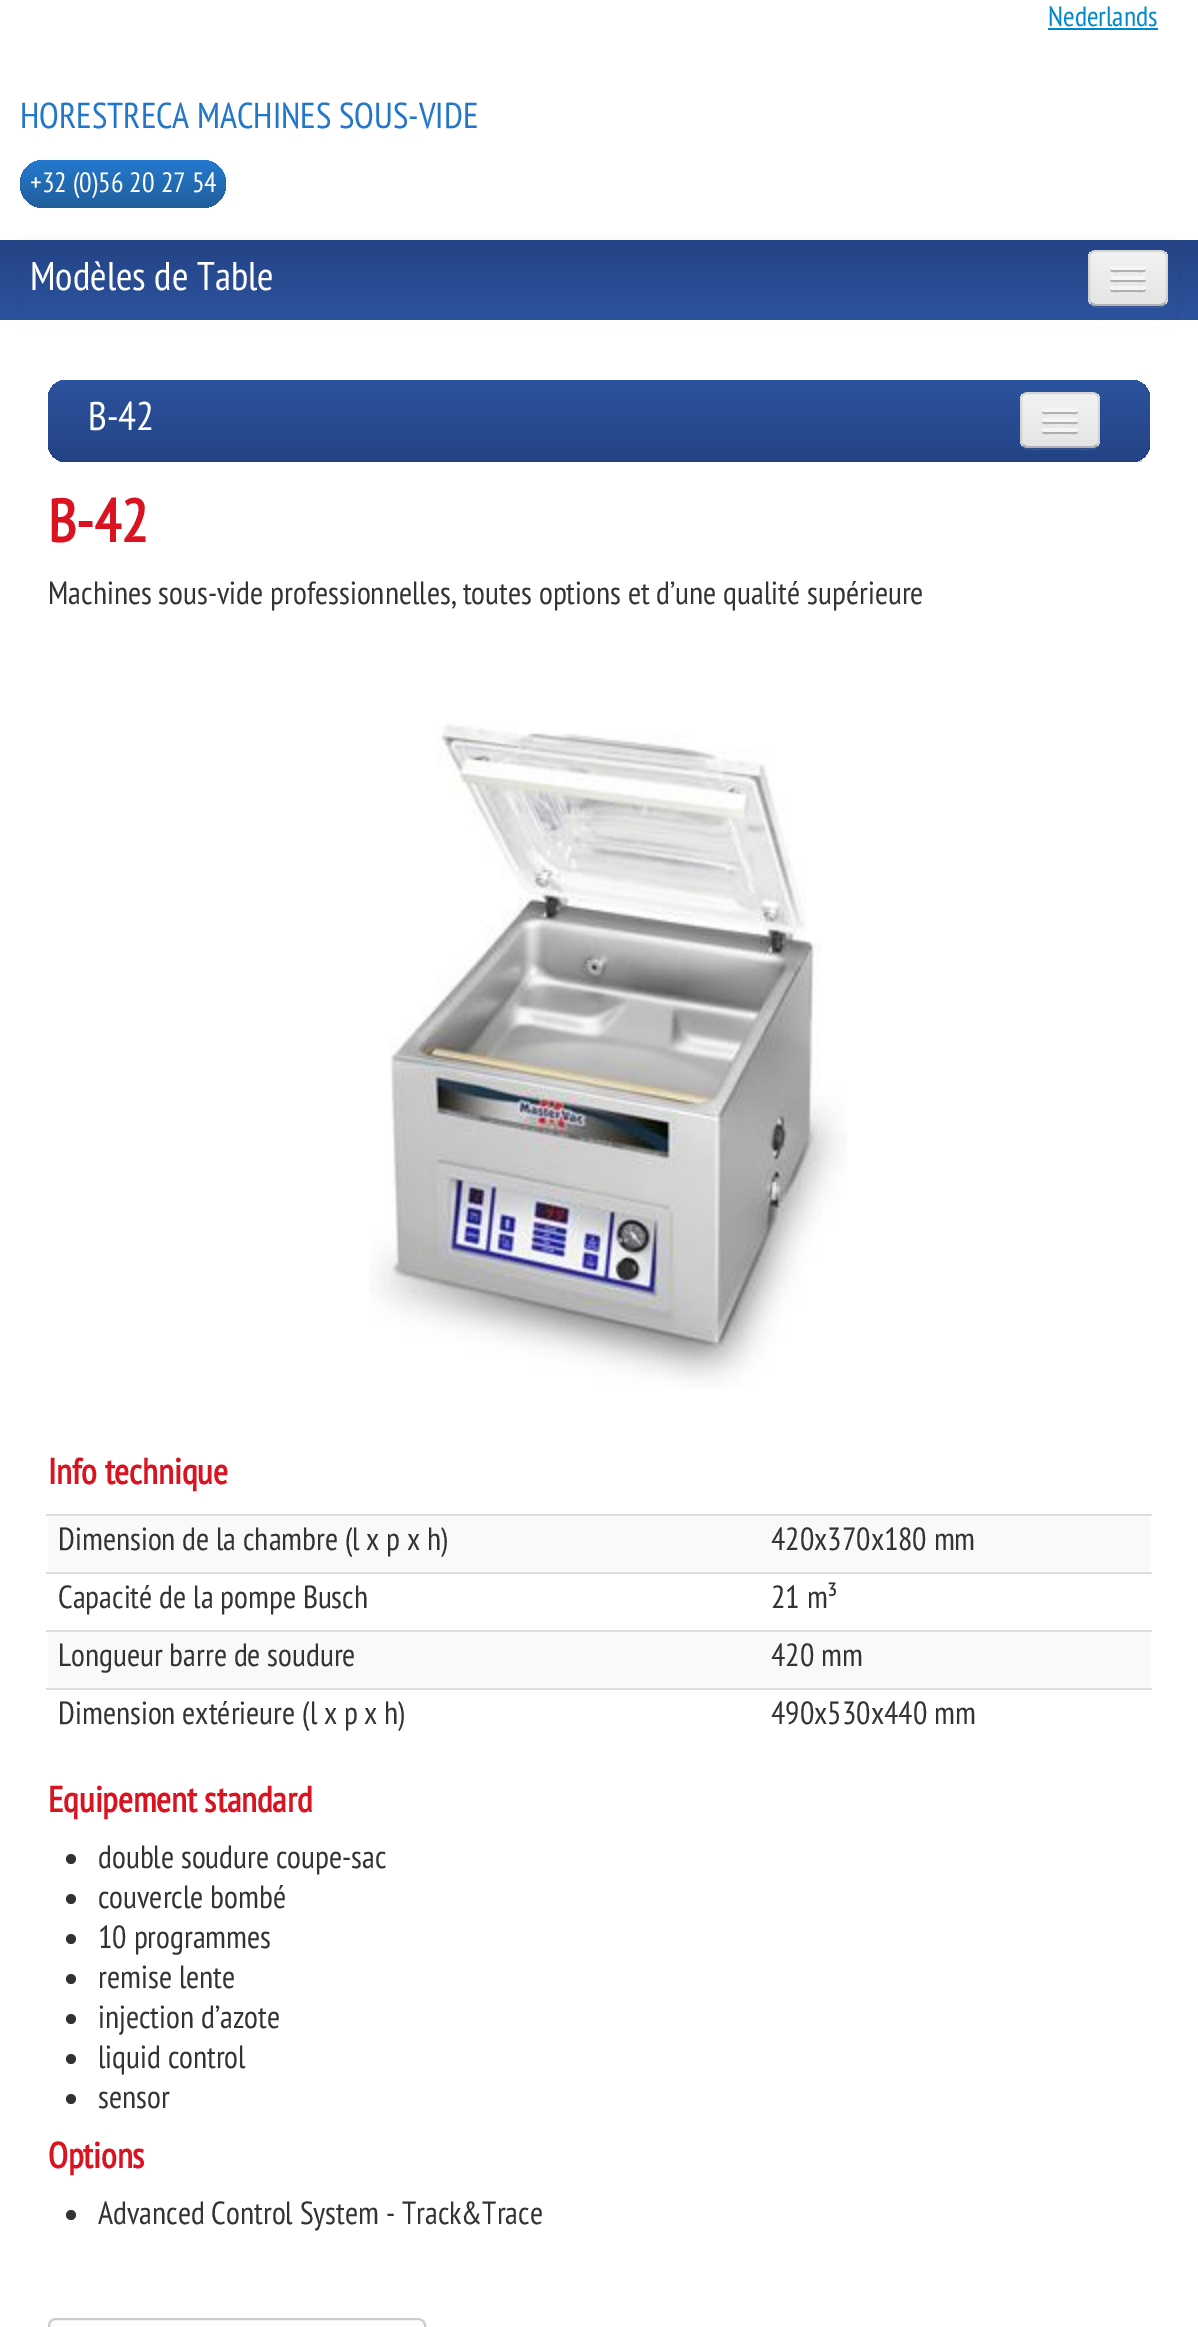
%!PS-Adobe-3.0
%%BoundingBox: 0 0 1198 2327
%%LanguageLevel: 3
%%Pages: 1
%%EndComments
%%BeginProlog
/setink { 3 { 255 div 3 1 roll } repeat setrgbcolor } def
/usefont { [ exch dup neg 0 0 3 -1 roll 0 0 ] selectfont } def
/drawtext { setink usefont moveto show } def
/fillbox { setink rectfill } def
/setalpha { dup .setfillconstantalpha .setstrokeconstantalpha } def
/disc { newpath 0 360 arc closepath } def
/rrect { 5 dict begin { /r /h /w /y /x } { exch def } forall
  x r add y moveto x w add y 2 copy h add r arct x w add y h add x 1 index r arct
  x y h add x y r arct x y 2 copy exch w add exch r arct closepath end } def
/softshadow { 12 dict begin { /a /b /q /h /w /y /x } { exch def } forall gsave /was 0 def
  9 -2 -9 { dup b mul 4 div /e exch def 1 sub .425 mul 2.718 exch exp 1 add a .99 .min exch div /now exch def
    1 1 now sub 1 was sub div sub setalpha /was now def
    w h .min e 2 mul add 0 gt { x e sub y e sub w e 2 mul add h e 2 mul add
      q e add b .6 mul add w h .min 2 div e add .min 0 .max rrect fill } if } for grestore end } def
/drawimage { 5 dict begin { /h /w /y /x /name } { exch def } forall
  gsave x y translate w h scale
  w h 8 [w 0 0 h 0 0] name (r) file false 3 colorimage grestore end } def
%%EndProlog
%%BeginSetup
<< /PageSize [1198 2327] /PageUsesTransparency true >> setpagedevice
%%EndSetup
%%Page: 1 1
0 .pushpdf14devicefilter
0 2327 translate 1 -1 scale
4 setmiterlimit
0 0 1198 2327 255 255 255 fillbox
(Nederlands) 1048 26 /PTSansNarrow-Regular 28 0 136 204 drawtext
1048 28 110 2 0 136 204 fillbox
(HORESTRECA MACHINES SOUS-VIDE) 20 128 /PTSansNarrow-Regular 36 35 118 201 drawtext
gsave 20 160 206 48 24 rrect clip newpath
<< /ShadingType 2 /ColorSpace /DeviceRGB /Coords [123 160 123 208] /Extend [true true] /Function << /FunctionType 2 /Domain [0 1] /C0 [0.141 0.475 0.808] /C1 [0.129 0.369 0.608] /N 1 >> >> shfill grestore
(+32 \(0\)56 20 27 54) 30 192 /PTSansNarrow-Regular 28 255 255 255 drawtext
gsave 0 240 moveto 1198 240 lineto 1198 320 lineto 0 320 lineto closepath clip newpath
<< /ShadingType 2 /ColorSpace /DeviceRGB /Coords [599 240 599 320] /Extend [true true] /Function << /FunctionType 2 /Domain [0 1] /C0 [0.141 0.263 0.525] /C1 [0.173 0.325 0.62] /N 1 >> >> shfill grestore
gsave
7 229 moveto 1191 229 lineto 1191 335 lineto 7 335 lineto closepath 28 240 moveto 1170 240 lineto 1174.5 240 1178 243.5 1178 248 curveto 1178 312 lineto 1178 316.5 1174.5 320 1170 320 curveto 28 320 lineto 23.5 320 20 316.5 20 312 curveto 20 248 lineto 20 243.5 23.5 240 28 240 curveto closepath eoclip newpath
0 0 0 setink
20 242 1158 80 8 4 0.07 softshadow
grestore
(Modèles de Table) 30 290 /PTSansNarrow-Regular 40 255 255 255 drawtext
59 94 161 setink
1088 298 moveto 1088 310 1097 308 1107 308 curveto 1149 308 lineto 1159 308 1168 310 1168 298 curveto 1168 302 1164 306 1160 306 curveto 1096 306 lineto 1092 306 1088 302 1088 298 curveto closepath fill
237 237 237 setink
1088 250 80 56 8 rrect fill
gsave
1088 250 80 56 8 rrect clip newpath
gsave 1088 252 moveto 1168 252 lineto 1168 304 lineto 1088 304 lineto closepath clip newpath
<< /ShadingType 2 /ColorSpace /DeviceRGB /Coords [1128 252 1128 304] /Extend [true true] /Function << /FunctionType 2 /Domain [0 1] /C0 [0.949 0.949 0.949] /C1 [0.898 0.898 0.898] /N 1 >> >> shfill grestore
grestore
0.25 setalpha
0 0 0 setink
2 setlinewidth
1165 303 moveto 1163.5 304.5 1162 305 1160 305 curveto 1096 305 lineto 1094 305 1092.5 304.5 1091 303 curveto stroke
0.1 setalpha
1091 303 moveto 1089.5 301.5 1089 300 1089 298 curveto 1089 258 lineto 1089 256 1089.5 254.5 1091 253 curveto 1092.5 251.5 1094 251 1096 251 curveto 1160 251 lineto 1162 251 1163.5 251.5 1165 253 curveto 1166.5 254.5 1167 256 1167 258 curveto 1167 298 lineto 1167 300 1166.5 301.5 1165 303 curveto stroke
1 setalpha
178 178 178 setink
1110.5 269 moveto 1108 273 1117 272 1117.5 272 curveto 1138.5 272 lineto 1139 272 1148 273 1145.5 269 curveto 1145.5 269.5 1144.5 270 1144 270 curveto 1112 270 lineto 1111.5 270 1110.5 269.5 1110.5 269 curveto closepath fill
245 245 245 setink
1110 266 36 4 2 rrect fill
176 176 176 setink
1110.5 279 moveto 1108 283 1117 282 1117.5 282 curveto 1138.5 282 lineto 1139 282 1148 283 1145.5 279 curveto 1145.5 279.5 1144.5 280 1144 280 curveto 1112 280 lineto 1111.5 280 1110.5 279.5 1110.5 279 curveto closepath fill
245 245 245 setink
1110 276 36 4 2 rrect fill
174 174 174 setink
1110.5 289 moveto 1108 293 1117 292 1117.5 292 curveto 1138.5 292 lineto 1139 292 1148 293 1145.5 289 curveto 1145.5 289.5 1144.5 290 1144 290 curveto 1112 290 lineto 1111.5 290 1110.5 289.5 1110.5 289 curveto closepath fill
245 245 245 setink
1110 286 36 4 2 rrect fill
19 320 1160 6 255 255 255 fillbox
58 460 1084 2 204 204 204 fillbox
gsave
48 380 1102 82 18 rrect clip newpath
gsave 66 380 moveto 1132 380 lineto 1142 380 1150 388 1150 398 curveto 1150 460 lineto 48 460 lineto 48 398 lineto 48 388 56 380 66 380 curveto closepath clip newpath
<< /ShadingType 2 /ColorSpace /DeviceRGB /Coords [599 380 599 460] /Extend [true true] /Function << /FunctionType 2 /Domain [0 1] /C0 [0.173 0.325 0.62] /C1 [0.141 0.263 0.525] /N 1 >> >> shfill grestore
gsave 58 460 moveto 1140 460 lineto 1140 462 lineto 58 462 lineto closepath clip newpath
<< /ShadingType 2 /ColorSpace /DeviceRGB /Coords [599 460 599 540] /Extend [true true] /Function << /FunctionType 2 /Domain [0 1] /C0 [0.137 0.259 0.494] /C1 [0.114 0.212 0.42] /N 1 >> >> shfill grestore
grestore
(B-42) 88 430 /PTSansNarrow-Regular 40 255 255 255 drawtext
53 83 146 setink
1020 440 moveto 1020 452 1029 450 1039 450 curveto 1081 450 lineto 1091 450 1100 452 1100 440 curveto 1100 444 1096 448 1092 448 curveto 1028 448 lineto 1024 448 1020 444 1020 440 curveto closepath fill
237 237 237 setink
1020 392 80 56 8 rrect fill
gsave
1020 392 80 56 8 rrect clip newpath
gsave 1020 394 moveto 1100 394 lineto 1100 446 lineto 1020 446 lineto closepath clip newpath
<< /ShadingType 2 /ColorSpace /DeviceRGB /Coords [1060 394 1060 446] /Extend [true true] /Function << /FunctionType 2 /Domain [0 1] /C0 [0.949 0.949 0.949] /C1 [0.898 0.898 0.898] /N 1 >> >> shfill grestore
grestore
0.25 setalpha
0 0 0 setink
1097 445 moveto 1095.5 446.5 1094 447 1092 447 curveto 1028 447 lineto 1026 447 1024.5 446.5 1023 445 curveto stroke
0.1 setalpha
1023 445 moveto 1021.5 443.5 1021 442 1021 440 curveto 1021 400 lineto 1021 398 1021.5 396.5 1023 395 curveto 1024.5 393.5 1026 393 1028 393 curveto 1092 393 lineto 1094 393 1095.5 393.5 1097 395 curveto 1098.5 396.5 1099 398 1099 400 curveto 1099 440 lineto 1099 442 1098.5 443.5 1097 445 curveto stroke
1 setalpha
178 178 178 setink
1042.5 411 moveto 1040 415 1049 414 1049.5 414 curveto 1070.5 414 lineto 1071 414 1080 415 1077.5 411 curveto 1077.5 411.5 1076.5 412 1076 412 curveto 1044 412 lineto 1043.5 412 1042.5 411.5 1042.5 411 curveto closepath fill
245 245 245 setink
1042 408 36 4 2 rrect fill
176 176 176 setink
1042.5 421 moveto 1040 425 1049 424 1049.5 424 curveto 1070.5 424 lineto 1071 424 1080 425 1077.5 421 curveto 1077.5 421.5 1076.5 422 1076 422 curveto 1044 422 lineto 1043.5 422 1042.5 421.5 1042.5 421 curveto closepath fill
245 245 245 setink
1042 418 36 4 2 rrect fill
174 174 174 setink
1042.5 431 moveto 1040 435 1049 434 1049.5 434 curveto 1070.5 434 lineto 1071 434 1080 435 1077.5 431 curveto 1077.5 431.5 1076.5 432 1076 432 curveto 1044 432 lineto 1043.5 432 1042.5 431.5 1042.5 431 curveto closepath fill
245 245 245 setink
1042 428 36 4 2 rrect fill
(B-42) 48 542 /PTSansNarrow-Bold 60 218 19 33 drawtext
(Machines sous-vide professionnelles, toutes options et d’une qualité supérieure) 48 604 /PTSansNarrow-Regular 32 51 51 51 drawtext
(assets/img1.rgb) 369 723 478 665 drawimage
(Info technique) 48 1484 /PTSansNarrow-Bold 36 218 19 33 drawtext
48 1516 1102 56 249 249 249 fillbox
(Dimension de la chambre \(l x p x h\)) 58 1550 /PTSansNarrow-Regular 32 51 51 51 drawtext
46 1514 1106 2 221 221 221 fillbox
(420x370x180 mm) 771 1550 /PTSansNarrow-Regular 32 51 51 51 drawtext
(Capacité de la pompe Busch) 58 1608 /PTSansNarrow-Regular 32 51 51 51 drawtext
46 1572 1106 2 221 221 221 fillbox
(21 m³) 771 1608 /PTSansNarrow-Regular 32 51 51 51 drawtext
48 1632 1102 56 249 249 249 fillbox
(Longueur barre de soudure) 58 1666 /PTSansNarrow-Regular 32 51 51 51 drawtext
46 1630 1106 2 221 221 221 fillbox
(420 mm) 771 1666 /PTSansNarrow-Regular 32 51 51 51 drawtext
(Dimension extérieure \(l x p x h\)) 58 1724 /PTSansNarrow-Regular 32 51 51 51 drawtext
46 1688 1106 2 221 221 221 fillbox
(490x530x440 mm) 771 1724 /PTSansNarrow-Regular 32 51 51 51 drawtext
(Equipement standard) 48 1812 /PTSansNarrow-Bold 36 218 19 33 drawtext
51 51 51 setink
71 1859 5 disc fill
(double soudure coupe-sac) 98 1868 /PTSansNarrow-Regular 32 51 51 51 drawtext
71 1899 5 disc fill
(couvercle bombé) 98 1908 /PTSansNarrow-Regular 32 51 51 51 drawtext
71 1939 5 disc fill
(10 programmes) 98 1948 /PTSansNarrow-Regular 32 51 51 51 drawtext
71 1979 5 disc fill
(remise lente) 98 1988 /PTSansNarrow-Regular 32 51 51 51 drawtext
71 2019 5 disc fill
(injection d’azote) 98 2028 /PTSansNarrow-Regular 32 51 51 51 drawtext
71 2059 5 disc fill
(liquid control) 98 2068 /PTSansNarrow-Regular 32 51 51 51 drawtext
71 2099 5 disc fill
(sensor) 98 2108 /PTSansNarrow-Regular 32 51 51 51 drawtext
(Options) 48 2168 /PTSansNarrow-Bold 36 218 19 33 drawtext
51 51 51 setink
71 2215 5 disc fill
(Advanced Control System - Track&Trace) 98 2224 /PTSansNarrow-Regular 32 51 51 51 drawtext
gsave
48 2318 378 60 8 rrect clip newpath
gsave 48 2320 moveto 426 2320 lineto 426 2327 lineto 48 2327 lineto closepath clip newpath
<< /ShadingType 2 /ColorSpace /DeviceRGB /Coords [237 2320 237 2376] /Extend [true true] /Function << /FunctionType 2 /Domain [0 1] /C0 [1 1 1] /C1 [0.902 0.902 0.902] /N 1 >> >> shfill grestore
grestore
204 204 204 setink
51 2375 moveto 49.5 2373.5 49 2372 49 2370 curveto 49 2326 lineto 49 2324 49.5 2322.5 51 2321 curveto 52.5 2319.5 54 2319 56 2319 curveto 418 2319 lineto 420 2319 421.5 2319.5 423 2321 curveto 424.5 2322.5 425 2324 425 2326 curveto 425 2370 lineto 425 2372 424.5 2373.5 423 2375 curveto stroke
.poppdf14devicefilter showpage
%%EOF
